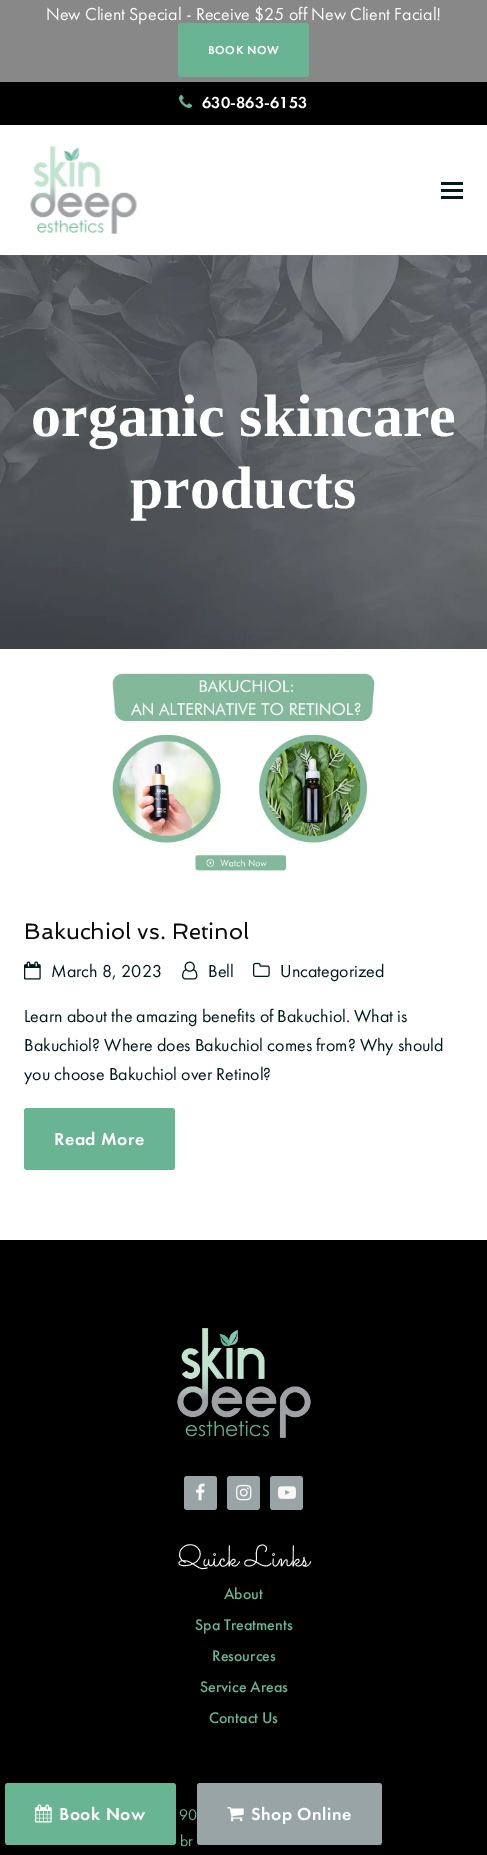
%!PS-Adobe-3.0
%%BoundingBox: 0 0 487 1855
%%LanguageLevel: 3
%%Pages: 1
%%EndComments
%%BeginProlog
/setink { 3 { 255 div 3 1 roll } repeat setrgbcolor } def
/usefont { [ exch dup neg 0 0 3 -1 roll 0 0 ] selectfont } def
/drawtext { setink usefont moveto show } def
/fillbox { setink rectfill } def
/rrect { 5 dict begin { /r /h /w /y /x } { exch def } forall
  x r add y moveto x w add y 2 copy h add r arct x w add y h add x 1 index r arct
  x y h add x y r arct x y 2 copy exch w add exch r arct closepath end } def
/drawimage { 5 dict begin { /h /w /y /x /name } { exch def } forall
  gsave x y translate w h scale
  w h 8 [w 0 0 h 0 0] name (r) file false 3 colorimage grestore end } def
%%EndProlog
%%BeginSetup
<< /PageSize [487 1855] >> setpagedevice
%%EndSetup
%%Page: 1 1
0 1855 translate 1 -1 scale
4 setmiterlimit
0 0 487 1855 255 255 255 fillbox
0 0 487 82 136 136 136 fillbox
(New Client Special - Receive $25 off New Client Facial!) 46 20 /FuturaPT-Regular 18 255 255 255 drawtext
104 180 147 setink
178 23 131 54 3 rrect fill
/FuturaPT-Medium 12 usefont
255 255 255 setink
208 54 moveto 0.5 0 (BOOK NOW) ashow
0 82 487 43 0 0 0 fillbox
(assets/img1.rgb) 179 94 14 14 drawimage
(630-863-6153) 202 108 /FuturaPT-Medium 16.5 255 255 255 drawtext
(assets/img2.rgb) 30 146 107 89 drawimage
441 189 22 3 1 24 28 fillbox
441 182 22 3 1 24 28 fillbox
441 196 22 3 1 24 28 fillbox
(assets/img3.rgb) 0 255 487 394 drawimage
(organic skincare) 31 436 /LiberationSerif-Bold 60 255 255 255 drawtext
(products) 130 508 /LiberationSerif-Bold 60 255 255 255 drawtext
(assets/img4.rgb) 112 673 263 199 drawimage
(Bakuchiol vs. Retinol) 24 939 /Spinnaker-Regular 22.25 11 12 12 drawtext
(assets/img5.rgb) 24 961 17 19 drawimage
(March 8, 2023) 51 977 /FuturaPT-Regular 18 1 24 28 drawtext
(assets/img6.rgb) 182 961 16 19 drawimage
(Bell) 208 977 /FuturaPT-Regular 18 1 24 28 drawtext
(assets/img7.rgb) 253 962 17 15 drawimage
(Uncategorized) 280 977 /FuturaPT-Regular 18 1 24 28 drawtext
(Learn about the amazing benefits of Bakuchiol. What is) 24 1022 /FuturaPT-Regular 18 1 24 28 drawtext
(Bakuchiol? Where does Bakuchiol comes from? Why should) 24 1051 /FuturaPT-Regular 18 1 24 28 drawtext
(you choose Bakuchiol over Retinol?) 24 1080 /FuturaPT-Regular 18 1 24 28 drawtext
104 180 147 setink
24 1108 151 62 3 rrect fill
/FuturaPT-Medium 18 usefont
255 255 255 setink
54 1145 moveto 0.5 0 (Read More) ashow
0 1240 487 615 0 0 0 fillbox
(assets/img8.rgb) 177 1328 134 110 drawimage
153 164 166 setink
184 1476 33 34 3 rrect fill
(assets/img9.rgb) 195 1483 10 18 drawimage
227 1476 33 34 3 rrect fill
(assets/img10.rgb) 236 1484 16 17 drawimage
270 1476 33 34 3 rrect fill
(assets/img11.rgb) 278 1486 18 13 drawimage
(Quick Links) 177 1566 /Sacramento-Regular 30 255 255 255 drawtext
(About) 224 1599 /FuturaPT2-Medium 16 104 180 147 drawtext
(Spa Treatments) 195 1630 /FuturaPT2-Medium 16 104 180 147 drawtext
(Resources) 212 1661 /FuturaPT2-Medium 16 104 180 147 drawtext
(Service Areas) 200 1692 /FuturaPT2-Medium 16 104 180 147 drawtext
(Contact Us) 209 1723 /FuturaPT2-Medium 16 104 180 147 drawtext
(90) 179 1820 /FuturaPT-Regular 16 104 180 147 drawtext
(br) 180 1846 /FuturaPT-Regular 16 104 180 147 drawtext
5 1783 171 62 3 rrect fill
(assets/img12.rgb) 35 1804 17 19 drawimage
/FuturaPT-Medium 18 usefont
255 255 255 setink
59 1820 moveto 0.5 0 (Book Now) ashow
153 164 166 setink
197 1783 185 62 3 rrect fill
(assets/img13.rgb) 227 1807 17 15 drawimage
255 255 255 setink
251 1820 moveto 0.5 0 (Shop Online) ashow
showpage
%%EOF
